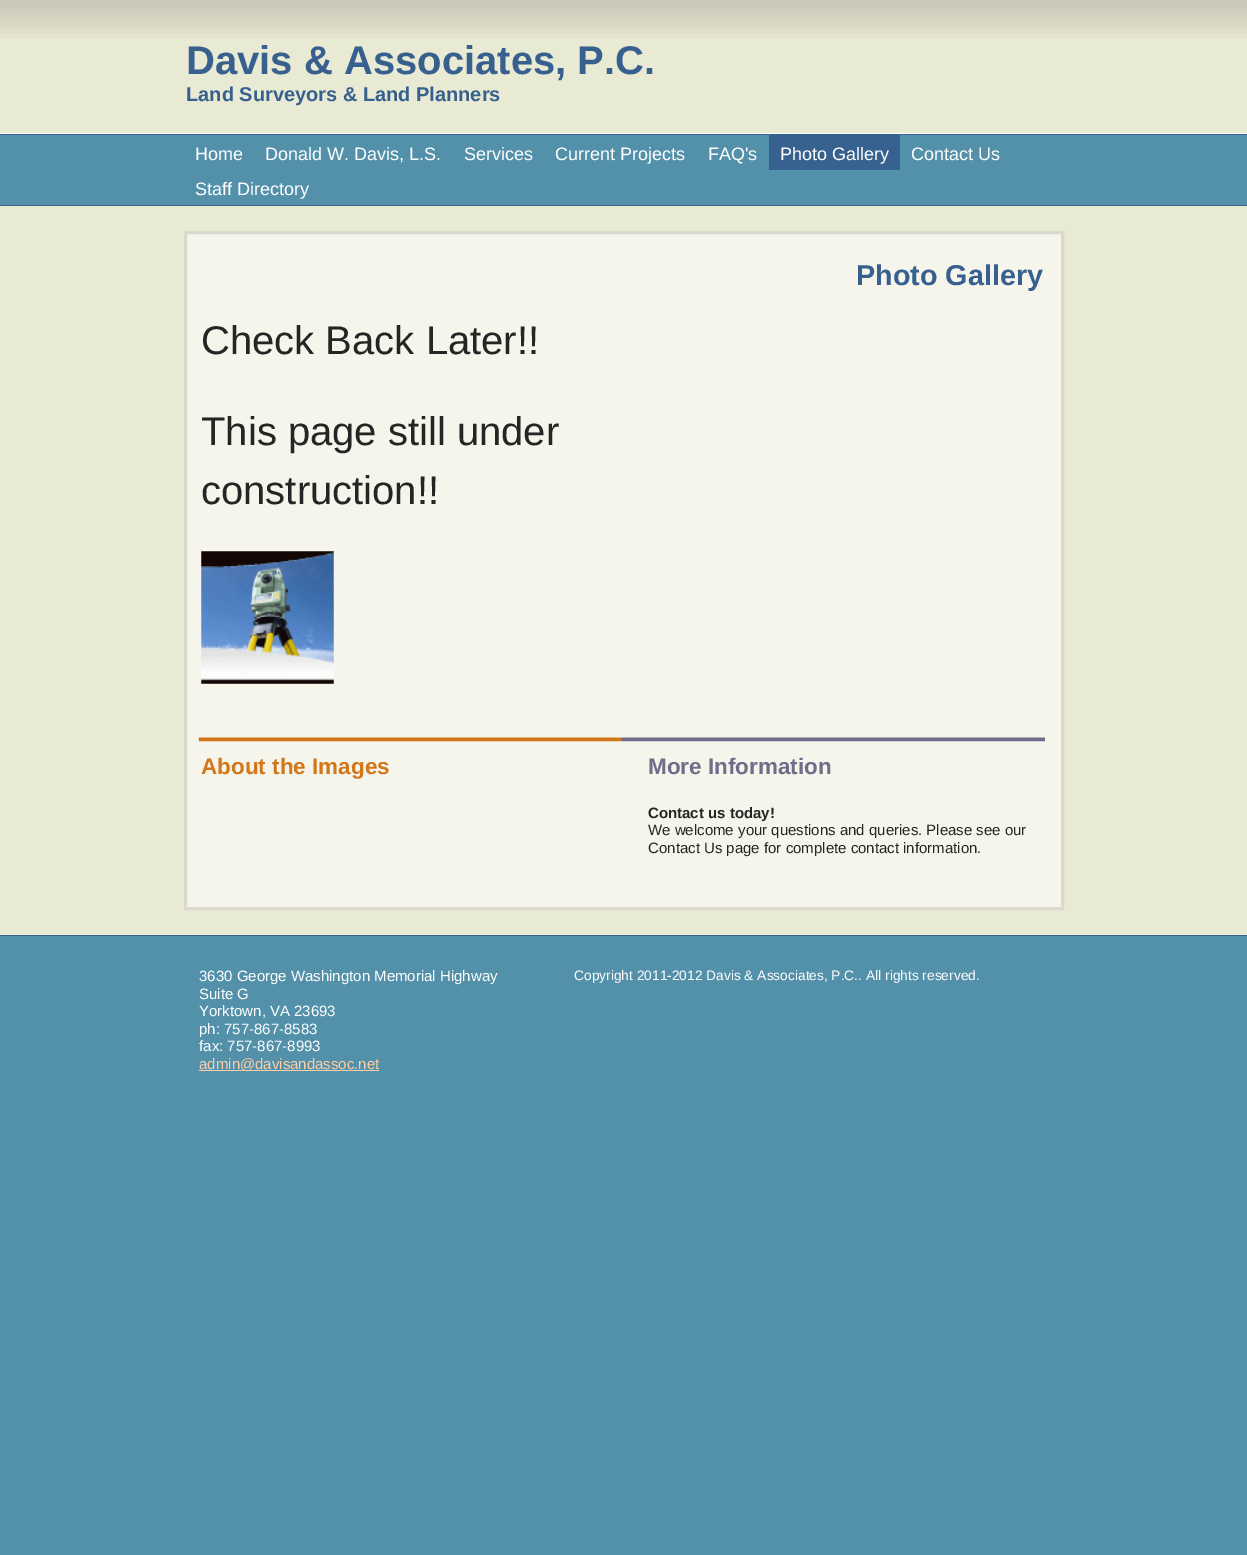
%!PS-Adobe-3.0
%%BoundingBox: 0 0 1247 1555
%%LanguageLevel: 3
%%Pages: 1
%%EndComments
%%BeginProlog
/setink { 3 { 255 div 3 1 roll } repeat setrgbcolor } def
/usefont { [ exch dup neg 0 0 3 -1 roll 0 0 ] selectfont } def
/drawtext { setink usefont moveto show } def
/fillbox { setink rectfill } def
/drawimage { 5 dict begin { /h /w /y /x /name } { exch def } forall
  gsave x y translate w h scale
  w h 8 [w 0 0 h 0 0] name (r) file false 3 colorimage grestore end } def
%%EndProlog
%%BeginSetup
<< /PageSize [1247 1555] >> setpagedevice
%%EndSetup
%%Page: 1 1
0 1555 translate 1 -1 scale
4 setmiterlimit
0 0 1247 1555 83 145 170 fillbox
0 38 1247 897 233 234 211 fillbox
(assets/img1.rgb) 0 0 1247 38 drawimage
0 133 1247 1 255 255 255 fillbox
(Davis & Associates, P.C.) 186 74 /LiberationSans-Bold 40 55 96 143 drawtext
(Land Surveyors & Land Planners) 186 101 /LiberationSans-Bold 20 55 96 143 drawtext
0 135 1247 70 83 145 170 fillbox
0 134 1247 1 55 98 143 fillbox
0 205 1247 1 55 98 143 fillbox
(Home) 195 160 /LiberationSans-Regular 18 255 255 255 drawtext
(Donald W. Davis, L.S.) 265 160 /LiberationSans-Regular 18 255 255 255 drawtext
(Services) 464 160 /LiberationSans-Regular 18 255 255 255 drawtext
(Current Projects) 555 160 /LiberationSans-Regular 18 255 255 255 drawtext
(FAQ's) 708 160 /LiberationSans-Regular 18 255 255 255 drawtext
769 135 131 35 55 98 143 fillbox
(Photo Gallery) 780 160 /LiberationSans-Regular 18 255 255 255 drawtext
(Contact Us) 911 160 /LiberationSans-Regular 18 255 255 255 drawtext
(Staff Directory) 195 195 /LiberationSans-Regular 18 255 255 255 drawtext
245 245 235 setink
185.5 232.5 moveto 1062.5 232.5 lineto 1062.5 908.5 lineto 185.5 908.5 lineto closepath gsave fill grestore
218 217 205 setink
3 setlinewidth
stroke
(Photo Gallery) 856 285 /LiberationSans-Bold 28.75 55 96 143 drawtext
(assets/img2.rgb) 198 737 847 5 drawimage
(Check Back Later!!) 201 354 /LiberationSans-Regular 40 37 37 37 drawtext
(This page still under) 201 445 /LiberationSans-Regular 40 37 37 37 drawtext
(construction!!) 201 504 /LiberationSans-Regular 40 37 37 37 drawtext
(assets/img3.rgb) 201 551 133 133 drawimage
(About the Images) 201 774 /LiberationSans-Bold 22.5 210 119 26 drawtext
(More Information) 648 774 /LiberationSans-Bold 22.5 112 109 138 drawtext
(Contact us today!) 648 818 /LiberationSans-Bold 15 37 37 37 drawtext
(We welcome your questions and queries. Please see our) 648 835 /LiberationSans-Regular 15 37 37 37 drawtext
(Contact Us page for complete contact information.) 648 853 /LiberationSans-Regular 15 37 37 37 drawtext
0 935 1247 1 55 98 143 fillbox
(3630 George Washington Memorial Highway) 199 981 /LiberationSans-Regular 15 255 255 255 drawtext
(Suite G) 199 999 /LiberationSans-Regular 15 255 255 255 drawtext
(Yorktown, VA 23693) 199 1016 /LiberationSans-Regular 15 255 255 255 drawtext
(ph: 757-867-8583) 199 1034 /LiberationSans-Regular 15 255 255 255 drawtext
(fax: 757-867-8993) 199 1051 /LiberationSans-Regular 15 255 255 255 drawtext
199 1070 180 1 254 206 168 fillbox
(admin@davisandassoc.net) 199 1069 /LiberationSans-Regular 15 254 206 168 drawtext
(Copyright 2011-2012 Davis & Associates, P.C.. All rights reserved.) 574 980 /LiberationSans-Regular 13.75 255 255 255 drawtext
showpage
%%EOF
